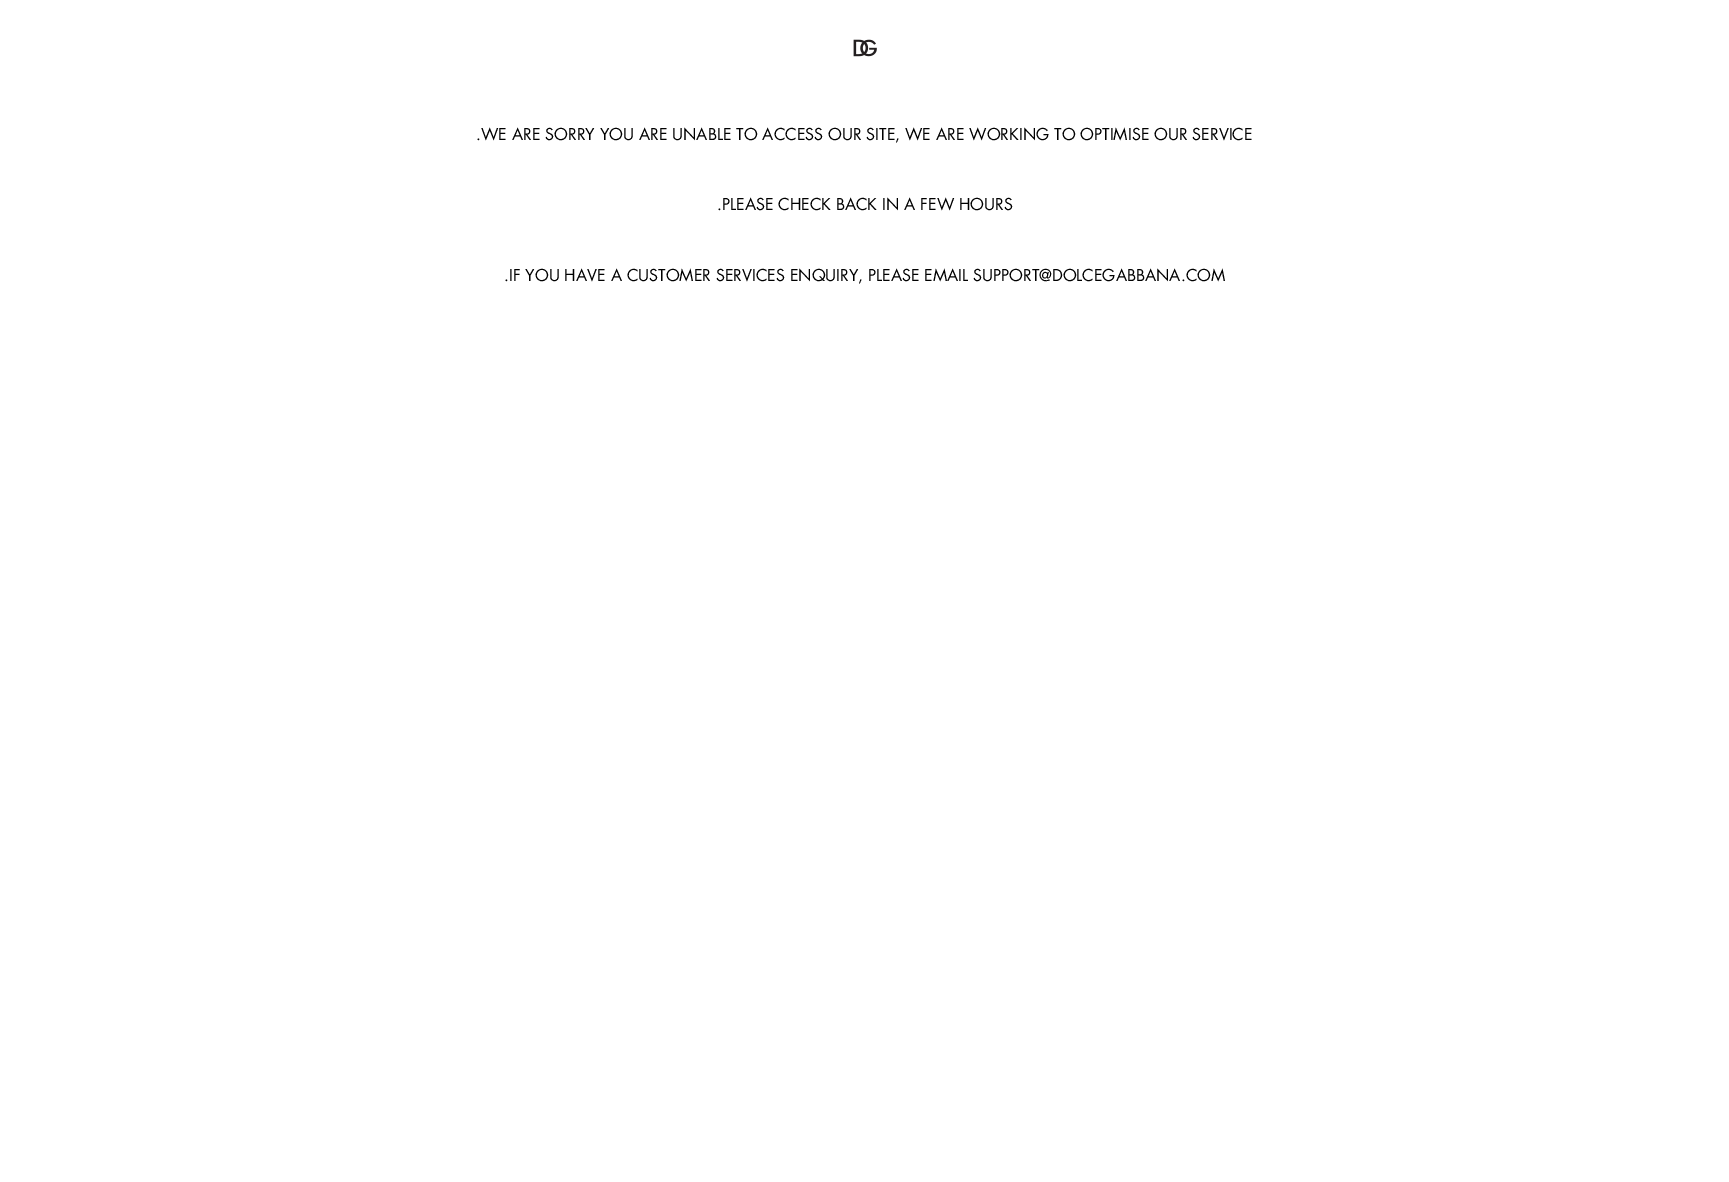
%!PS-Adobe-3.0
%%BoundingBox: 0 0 1729 1182
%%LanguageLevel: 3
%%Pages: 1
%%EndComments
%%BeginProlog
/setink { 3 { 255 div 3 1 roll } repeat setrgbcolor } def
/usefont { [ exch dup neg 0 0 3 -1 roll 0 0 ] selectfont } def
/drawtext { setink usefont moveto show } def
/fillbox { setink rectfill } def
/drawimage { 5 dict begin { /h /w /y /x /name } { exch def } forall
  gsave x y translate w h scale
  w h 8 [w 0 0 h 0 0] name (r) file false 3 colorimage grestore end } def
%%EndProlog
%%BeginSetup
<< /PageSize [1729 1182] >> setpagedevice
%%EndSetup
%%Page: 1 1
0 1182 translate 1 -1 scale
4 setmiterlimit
0 0 1729 1182 255 255 255 fillbox
(assets/img1.rgb) 853 39 24 18 drawimage
(.WE ARE SORRY YOU ARE UNABLE TO ACCESS OUR SITE, WE ARE WORKING TO OPTIMISE OUR SERVICE) 476 140 /Futura-Regular 16 0 0 0 drawtext
(.PLEASE CHECK BACK IN A FEW HOURS) 717 210 /Futura-Regular 16 0 0 0 drawtext
(.IF YOU HAVE A CUSTOMER SERVICES ENQUIRY, PLEASE EMAIL SUPPORT@DOLCEGABBANA.COM) 504 281 /Futura-Regular 16 0 0 0 drawtext
showpage
%%EOF
